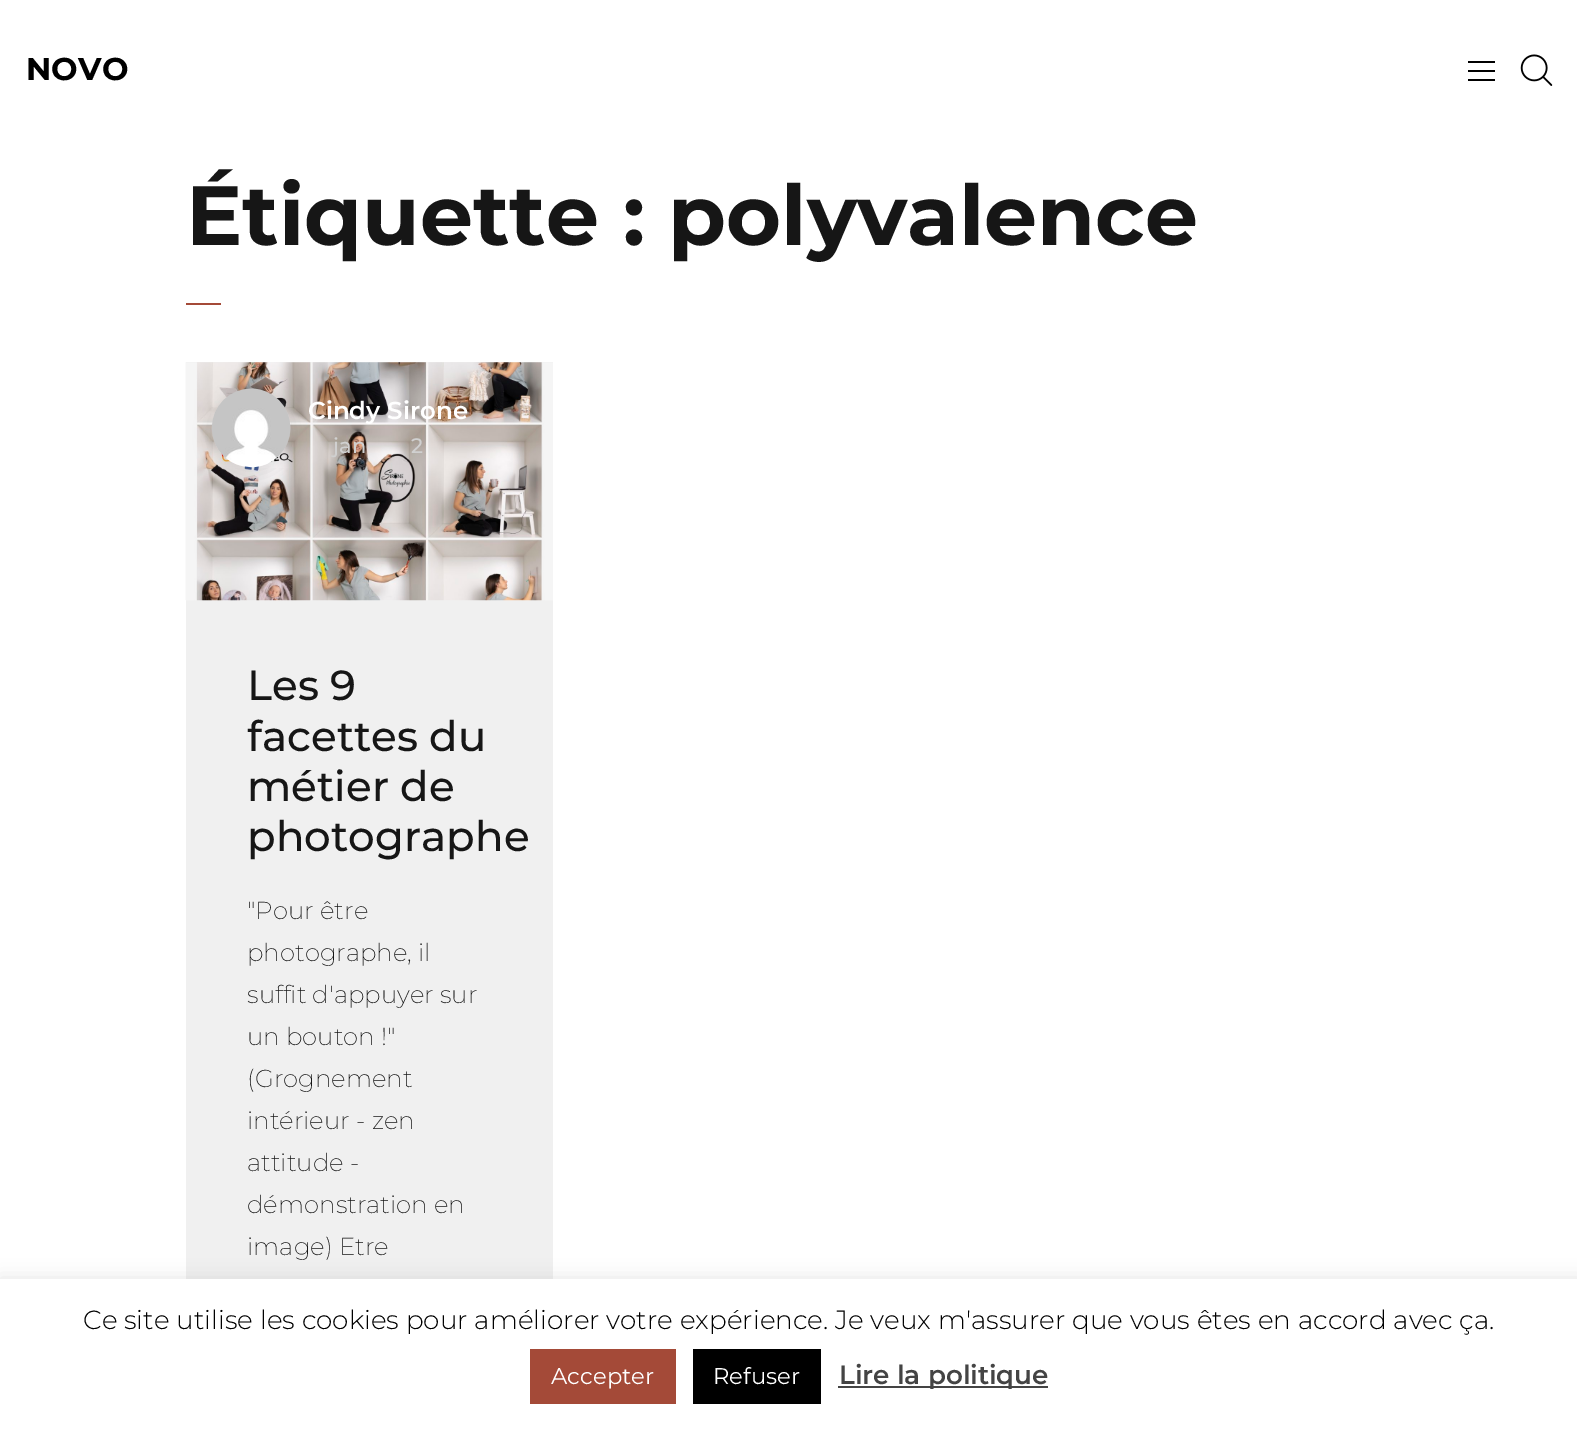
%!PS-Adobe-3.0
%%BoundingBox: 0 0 1577 1433
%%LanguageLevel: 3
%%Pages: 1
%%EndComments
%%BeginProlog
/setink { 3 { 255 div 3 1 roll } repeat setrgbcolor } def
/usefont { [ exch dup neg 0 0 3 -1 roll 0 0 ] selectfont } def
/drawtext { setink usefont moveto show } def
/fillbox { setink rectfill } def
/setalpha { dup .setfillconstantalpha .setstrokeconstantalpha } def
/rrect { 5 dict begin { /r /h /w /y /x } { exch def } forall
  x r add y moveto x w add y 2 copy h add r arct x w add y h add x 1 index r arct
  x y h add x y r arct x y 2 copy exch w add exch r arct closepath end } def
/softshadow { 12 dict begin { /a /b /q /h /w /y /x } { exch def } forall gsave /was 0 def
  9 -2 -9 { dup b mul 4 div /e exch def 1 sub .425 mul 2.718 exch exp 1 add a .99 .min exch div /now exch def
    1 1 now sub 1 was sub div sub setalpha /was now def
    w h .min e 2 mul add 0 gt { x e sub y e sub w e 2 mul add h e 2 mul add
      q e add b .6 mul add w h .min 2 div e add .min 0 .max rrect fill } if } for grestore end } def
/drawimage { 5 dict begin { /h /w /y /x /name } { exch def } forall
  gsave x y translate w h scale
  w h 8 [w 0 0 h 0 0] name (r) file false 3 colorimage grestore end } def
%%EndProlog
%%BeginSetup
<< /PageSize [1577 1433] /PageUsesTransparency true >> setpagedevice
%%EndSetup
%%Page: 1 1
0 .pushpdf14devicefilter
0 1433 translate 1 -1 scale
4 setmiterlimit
0 0 1577 1433 255 255 255 fillbox
(NOVO) 26 80 /Montserrat-Bold 31.5 0 0 0 drawtext
1468 61 27 2 0 0 0 fillbox
1468 70 27 2 0 0 0 fillbox
1468 79 27 2 0 0 0 fillbox
(assets/img1.rgb) 1520 54 33 32 drawimage
(Étiquette : polyvalence) 186 245 /Montserrat-Bold 84 22 22 22 drawtext
186 303 35 2 164 74 56 fillbox
186 362 367 917 240 240 240 fillbox
(assets/img2.rgb) 185 362 368 239 drawimage
0 0 0 setink
212 396 79 78 39 9 0.1 softshadow
(assets/img3.rgb) 211 388 80 80 drawimage
(Cindy Sirone) 308 419 /Montserrat-SemiBold 24.5 255 255 255 drawtext
(jan) 333 453 /Montserrat-Medium 21 208 208 208 drawtext
(2) 411 453 /Montserrat-Medium 21 208 208 208 drawtext
(Les 9) 247 700 /Montserrat-Medium 42 22 22 22 drawtext
(facettes du) 247 751 /Montserrat-Medium 42 22 22 22 drawtext
(métier de) 247 801 /Montserrat-Medium 42 22 22 22 drawtext
(photographe) 247 851 /Montserrat-Medium 42 22 22 22 drawtext
("Pour être) 247 919 /Montserrat-ExtraLight 24.5 22 22 22 drawtext
(photographe, il) 247 961 /Montserrat-ExtraLight 24.5 22 22 22 drawtext
(suffit d'appuyer sur) 247 1003 /Montserrat-ExtraLight 24.5 22 22 22 drawtext
(un bouton !") 247 1045 /Montserrat-ExtraLight 24.5 22 22 22 drawtext
(\(Grognement) 247 1087 /Montserrat-ExtraLight 24.5 22 22 22 drawtext
(intérieur - zen) 247 1129 /Montserrat-ExtraLight 24.5 22 22 22 drawtext
(attitude -) 247 1171 /Montserrat-ExtraLight 24.5 22 22 22 drawtext
(démonstration en) 247 1213 /Montserrat-ExtraLight 24.5 22 22 22 drawtext
(image\) Etre) 247 1255 /Montserrat-ExtraLight 24.5 22 22 22 drawtext
172 171 171 setink
0 1278 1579 154 0 9 0.3 softshadow
0 1279 1577 154 255 255 255 fillbox
(Ce site utilise les cookies pour améliorer votre expérience. Je veux m'assurer que vous êtes en accord avec ça.) 83 1329 /Montserrat-Light 26.25 0 0 0 drawtext
530 1349 146 55 164 74 56 fillbox
(Accepter) 551 1384 /Montserrat-Regular 22.75 255 255 255 drawtext
693 1349 128 55 0 0 0 fillbox
(Refuser) 713 1384 /Montserrat-Regular 22.75 255 255 255 drawtext
838 1386 210 2 68 68 68 fillbox
(Lire la politique) 839 1384 /Montserrat-SemiBold 26.25 68 68 68 drawtext
.poppdf14devicefilter showpage
%%EOF
